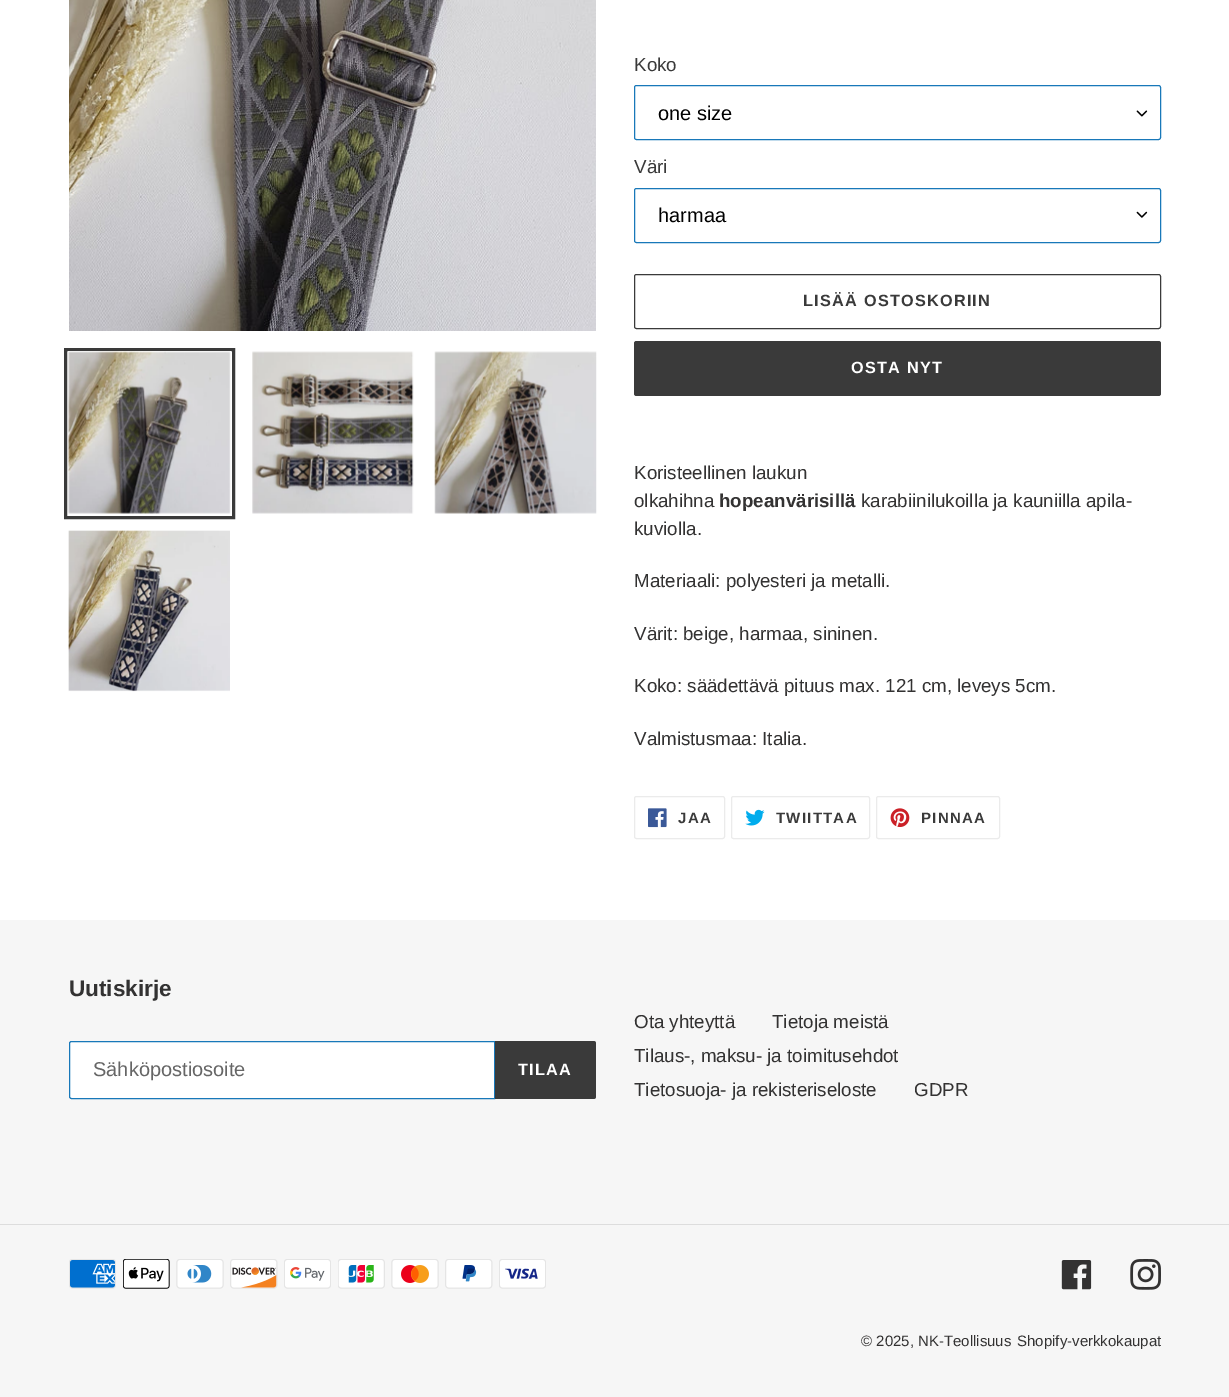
%!PS-Adobe-3.0
%%BoundingBox: 0 0 1229 1397
%%LanguageLevel: 3
%%Pages: 1
%%EndComments
%%BeginProlog
/setink { 3 { 255 div 3 1 roll } repeat setrgbcolor } def
/usefont { [ exch dup neg 0 0 3 -1 roll 0 0 ] selectfont } def
/drawtext { setink usefont moveto show } def
/fillbox { setink rectfill } def
/rrect { 5 dict begin { /r /h /w /y /x } { exch def } forall
  x r add y moveto x w add y 2 copy h add r arct x w add y h add x 1 index r arct
  x y h add x y r arct x y 2 copy exch w add exch r arct closepath end } def
/drawimage { 5 dict begin { /h /w /y /x /name } { exch def } forall
  gsave x y translate w h scale
  w h 8 [w 0 0 h 0 0] name (r) file false 3 colorimage grestore end } def
%%EndProlog
%%BeginSetup
<< /PageSize [1229 1397] >> setpagedevice
%%EndSetup
%%Page: 1 1
0 1397 translate 1 -1 scale
4 setmiterlimit
0 0 1229 1397 255 255 255 fillbox
(assets/img1.rgb) 69 0 527 331 drawimage
58 58 58 setink
3 setlinewidth
65.5 349.5 168 168 rectstroke
(assets/img2.rgb) 68 351 163 163 drawimage
(assets/img3.rgb) 252 351 162 163 drawimage
(assets/img4.rgb) 434 351 163 163 drawimage
(assets/img5.rgb) 68 530 162 162 drawimage
(Koko) 634 71 /LiberationSans-Regular 18.75 58 58 58 drawtext
(assets/img6.rgb) 1136 110 12 7 drawimage
24 120 185 setink
1 setlinewidth
634.5 85.5 526 54 2 rrect stroke
(one size) 658 120 /LiberationSans-Regular 20 0 0 0 drawtext
(Väri) 634 173 /LiberationSans-Regular 18.75 58 58 58 drawtext
(assets/img7.rgb) 1136 211 12 7 drawimage
24 120 185 setink
634.5 188.5 526 54 2 rrect stroke
(harmaa) 658 222 /LiberationSans-Regular 20 0 0 0 drawtext
58 58 58 setink
634.5 274.5 526 54 2 rrect stroke
/LiberationSans-Bold 16.25 usefont
803 306 moveto 1.25 0 (LISÄÄ OSTOSKORIIN) ashow
634 341 527 55 2.5 rrect fill
255 255 255 setink
851 373 moveto 1.25 0 (OSTA NYT) ashow
(Koristeellinen laukun) 634 479 /LiberationSans-Regular 18.75 51 50 50 drawtext
(olkahihna) 634 507 /LiberationSans-Regular 18.75 51 50 50 drawtext
(hopeanvärisillä) 719 507 /LiberationSans-Bold 18.75 51 50 50 drawtext
(karabiinilukoilla ja kauniilla apila-) 861 507 /LiberationSans-Regular 18.75 51 50 50 drawtext
(kuviolla.) 634 535 /LiberationSans-Regular 18.75 51 50 50 drawtext
(Materiaali: polyesteri ja metalli.) 634 587 /LiberationSans-Regular 18.75 51 50 50 drawtext
(Värit: beige, harmaa, sininen.) 634 640 /LiberationSans-Regular 18.75 51 50 50 drawtext
(Koko: säädettävä pituus max. 121 cm, leveys 5cm.) 634 692 /LiberationSans-Regular 18.75 51 50 50 drawtext
(Valmistusmaa: Italia.) 634 745 /LiberationSans-Regular 18.75 51 50 50 drawtext
235 235 235 setink
634.5 796.5 90 42 2 rrect stroke
(assets/img8.rgb) 648 808 19 20 drawimage
/LiberationSans-Bold 15 usefont
58 58 58 setink
678 823 moveto 1.25 0 (JAA) ashow
235 235 235 setink
731.5 796.5 138 42 2 rrect stroke
(assets/img9.rgb) 745 809 20 17 drawimage
58 58 58 setink
776 823 moveto 1.25 0 (TWIITTAA) ashow
235 235 235 setink
876.5 796.5 123 42 2 rrect stroke
(assets/img10.rgb) 890 808 20 19 drawimage
58 58 58 setink
921 823 moveto 1.25 0 (PINNAA) ashow
0 920 1229 477 246 246 246 fillbox
(Uutiskirje) 69 996 /LiberationSans-Bold 22.5 51 50 50 drawtext
255 255 255 setink
71.5 1041.5 moveto 494.5 1041.5 lineto 494.5 1098.5 lineto 71.5 1098.5 lineto 70.5 1098.5 69.5 1097.5 69.5 1096.5 curveto 69.5 1043.5 lineto 69.5 1042.5 70.5 1041.5 71.5 1041.5 curveto closepath gsave fill grestore
24 120 185 setink
stroke
(Sähköpostiosoite) 93 1076 /LiberationSans-Regular 20 102 102 102 drawtext
58 58 58 setink
495 1041 moveto 593.5 1041 lineto 595 1041 596 1042 596 1043.5 curveto 596 1096.5 lineto 596 1098 595 1099 593.5 1099 curveto 495 1099 lineto closepath fill
/LiberationSans-Bold 16.25 usefont
255 255 255 setink
518 1075 moveto 1.25 0 (TILAA) ashow
(Ota yhteyttä) 634 1028 /LiberationSans-Regular 18.75 51 50 50 drawtext
(Tietoja meistä) 772 1028 /LiberationSans-Regular 18.75 51 50 50 drawtext
(Tilaus-, maksu- ja toimitusehdot) 634 1062 /LiberationSans-Regular 18.75 51 50 50 drawtext
(Tietosuoja- ja rekisteriseloste) 634 1096 /LiberationSans-Regular 18.75 51 50 50 drawtext
(GDPR) 914 1096 /LiberationSans-Regular 18.75 51 50 50 drawtext
0 1224 1229 1 221 221 221 fillbox
(assets/img11.rgb) 69 1259 47 30 drawimage
(assets/img12.rgb) 123 1259 47 30 drawimage
(assets/img13.rgb) 176 1259 48 30 drawimage
(assets/img14.rgb) 230 1259 48 30 drawimage
(assets/img15.rgb) 284 1259 47 30 drawimage
(assets/img16.rgb) 338 1259 47 30 drawimage
(assets/img17.rgb) 391 1259 48 30 drawimage
(assets/img18.rgb) 445 1259 48 30 drawimage
(assets/img19.rgb) 499 1259 47 30 drawimage
(assets/img20.rgb) 1061 1260 31 30 drawimage
(assets/img21.rgb) 1130 1259 31 31 drawimage
(© 2025, NK-Teollisuus) 861 1346 /LiberationSans-Regular 15 51 50 50 drawtext
(Shopify-verkkokaupat) 1017 1346 /LiberationSans-Regular 15 51 50 50 drawtext
showpage
%%EOF
